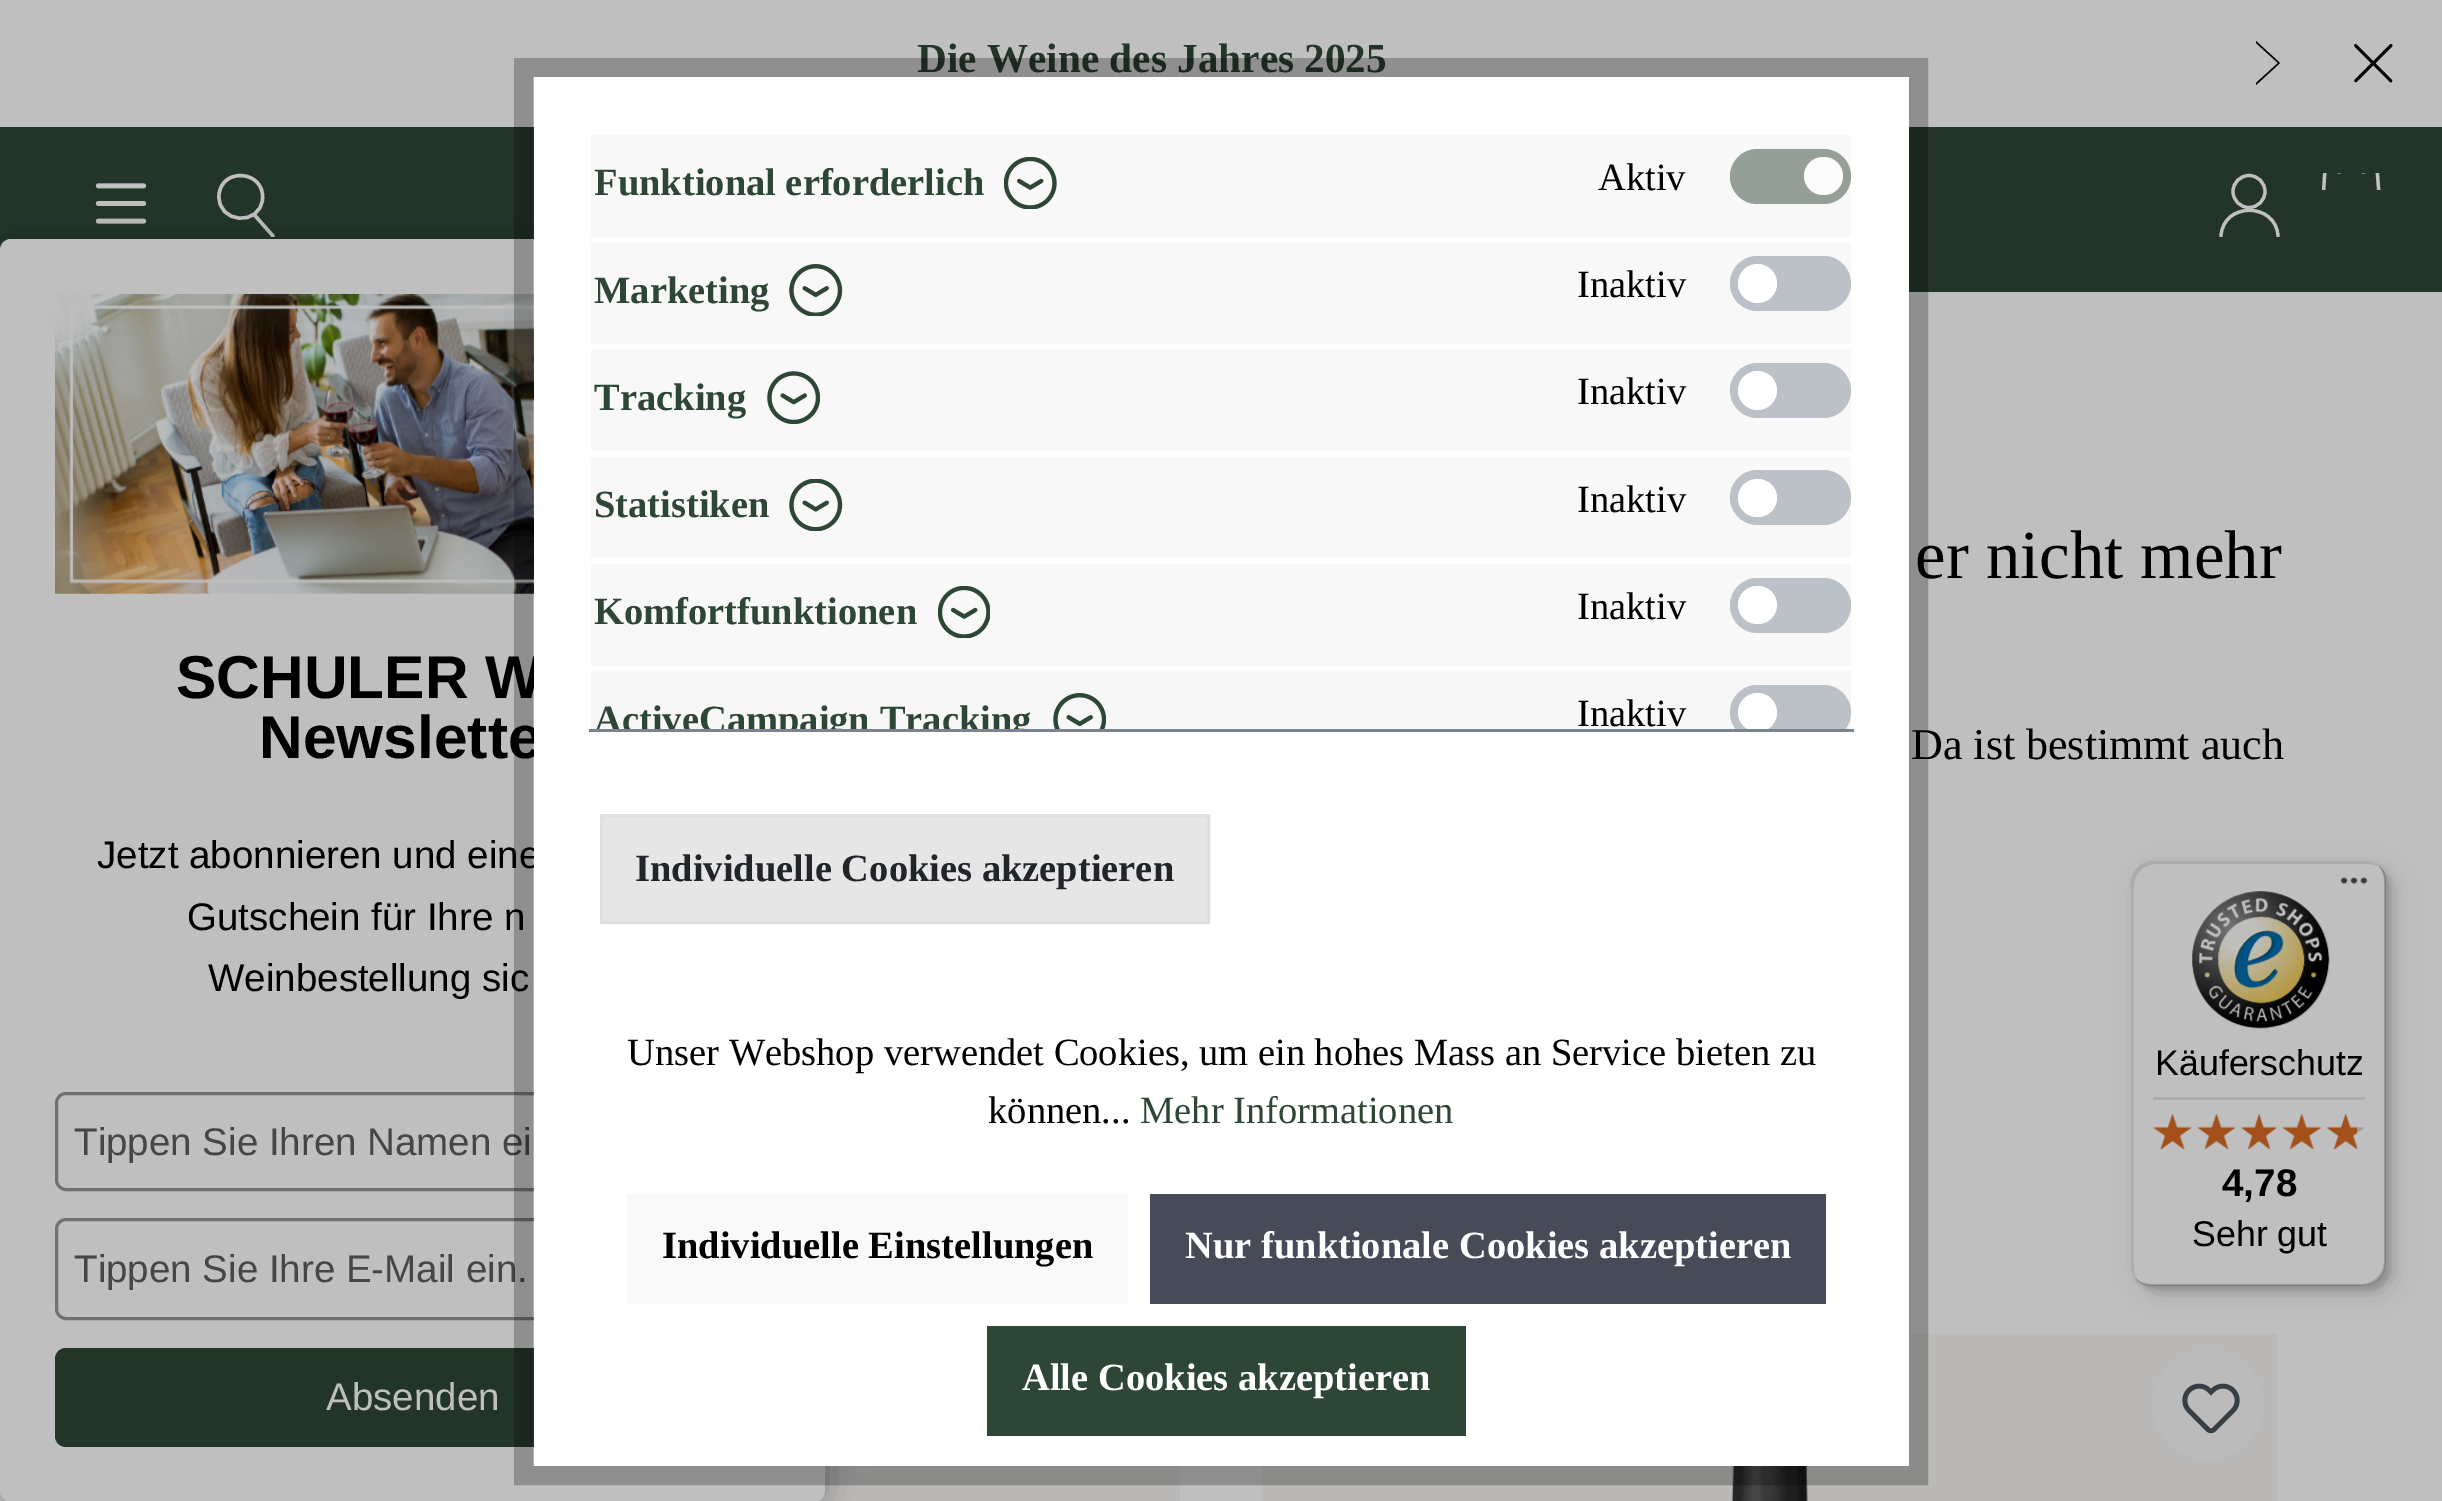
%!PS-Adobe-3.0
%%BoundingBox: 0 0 2442 1501
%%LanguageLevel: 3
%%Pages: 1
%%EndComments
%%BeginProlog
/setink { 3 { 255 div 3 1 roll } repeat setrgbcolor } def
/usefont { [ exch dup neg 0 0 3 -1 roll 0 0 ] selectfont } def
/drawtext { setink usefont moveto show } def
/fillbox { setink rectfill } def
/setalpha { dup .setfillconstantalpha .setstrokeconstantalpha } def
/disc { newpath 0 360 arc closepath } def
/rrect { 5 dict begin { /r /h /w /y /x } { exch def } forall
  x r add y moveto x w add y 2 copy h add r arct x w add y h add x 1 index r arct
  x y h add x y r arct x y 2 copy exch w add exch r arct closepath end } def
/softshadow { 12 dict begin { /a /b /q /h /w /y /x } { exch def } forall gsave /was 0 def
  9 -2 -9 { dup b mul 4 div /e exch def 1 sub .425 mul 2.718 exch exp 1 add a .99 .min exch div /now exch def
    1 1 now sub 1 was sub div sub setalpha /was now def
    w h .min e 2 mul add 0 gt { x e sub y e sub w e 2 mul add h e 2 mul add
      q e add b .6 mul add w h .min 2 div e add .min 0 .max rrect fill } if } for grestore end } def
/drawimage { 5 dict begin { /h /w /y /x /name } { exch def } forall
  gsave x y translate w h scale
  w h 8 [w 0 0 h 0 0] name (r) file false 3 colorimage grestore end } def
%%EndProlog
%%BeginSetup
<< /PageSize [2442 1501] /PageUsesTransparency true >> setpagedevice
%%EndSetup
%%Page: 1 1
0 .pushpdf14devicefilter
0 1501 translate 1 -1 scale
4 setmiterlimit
0 0 2442 1501 191 191 191 fillbox
(Die Weine des Jahres 2025) 917 72 /LiberationSerif-Bold 41.25 35 53 41 drawtext
0 0 0 setink
2280 63 moveto 2256 85 lineto 2256 83 lineto 2278 63 lineto 2256 43 lineto 2256 41 lineto closepath fill
(assets/img1.rgb) 2354 44 39 39 drawimage
0 127 2442 165 35 53 41 fillbox
(assets/img2.rgb) 95 183 52 41 drawimage
191 191 191 setink
3.4 setlinewidth
219 195 moveto 221.5 166.5 265 170.5 262.5 199 curveto 260 227 217 223.5 219 195 curveto closepath stroke
gsave
217 173 61 64 rectclip
1 setlinecap
1 setlinejoin
254.5 215 moveto 273 236 lineto stroke
grestore
3.2 setlinewidth
2249 191.5 16 disc stroke
gsave
2219 173 61 64 rectclip
1 setlinecap
1 setlinejoin
2278 236 moveto 2276 202 2223 201.5 2221 236 curveto stroke
grestore
gsave
2321 173 61 17 rectclip
3.3 setlinewidth
2371 215.5 moveto 2331.5 215.5 lineto 2327 215.5 2322.5 211.5 2322.5 207 curveto 2325.5 161.5 lineto 2376.5 162 lineto 2380 207 lineto 2379.5 212 2375.5 215.5 2371 215.5 curveto closepath 2339 173.5 moveto 2339 153 lineto 2339 148.5 2343 144.5 2347.5 144.5 curveto 2355 144.5 lineto 2360 144.5 2363.5 148.5 2363.5 153 curveto 2363.5 173.5 lineto stroke
grestore
818 1466 362 35 186 185 184 fillbox
0 0 0 setink
0 242 825 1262 11 18 0.3 softshadow
191 191 191 setink
0 239 825 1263 11 rrect fill
(assets/img3.rgb) 55 294 479 300 drawimage
(SCHULER W) 176 698 /LiberationSans-Bold 60.5 0 0 0 drawtext
(Newslette) 259 758 /LiberationSans-Bold 60.5 0 0 0 drawtext
(Jetzt abonnieren und eine) 97 868 /LiberationSans-Regular 38.5 0 0 0 drawtext
(Gutschein für Ihre n) 187 930 /LiberationSans-Regular 38.5 0 0 0 drawtext
(Weinbestellung sic) 208 991 /LiberationSans-Regular 38.5 0 0 0 drawtext
113 113 113 setink
3 setlinewidth
56.5 1093.5 712 96 9.5 rrect stroke
(Tippen Sie Ihren Namen ei) 74 1155 /LiberationSans-Regular 38.5 70 70 70 drawtext
113 113 113 setink
56.5 1219.5 712 99 9.5 rrect stroke
(Tippen Sie Ihre E-Mail ein.) 74 1282 /LiberationSans-Regular 38.5 70 70 70 drawtext
35 53 41 setink
55 1348 715 99 11 rrect fill
(Absenden) 326 1410 /LiberationSans-Regular 38.5 191 191 191 drawtext
(er nicht mehr) 1915 578 /LiberationSerif-Regular 68.75 0 0 0 drawtext
(Da ist bestimmt auch) 1911 759 /LiberationSerif-Regular 44 0 0 0 drawtext
1262 1334 1015 167 186 185 184 fillbox
(assets/img11.rgb) 1731 1466 77 35 drawimage
0.25 setalpha
0 0 0 setink
19 setlinewidth
523.5 67.5 1395 1408 rectstroke
1 setalpha
534 77 1375 1389 255 255 255 fillbox
589 729 1265 3 121 132 144 fillbox
591 135 1260 102 248 248 248 fillbox
(Funktional erforderlich) 594 195 /LiberationSerif-Bold 38.5 46 70 54 drawtext
(assets/img4.rgb) 1004 157 53 52 drawimage
(Aktiv) 1598 190 /LiberationSerif-Regular 38.5 0 0 0 drawtext
147 159 151 setink
1730 149 121 55 27.5 rrect fill
252 252 252 setink
1804 157 39 38 19 rrect fill
591 242 1260 102 248 248 248 fillbox
(Marketing) 594 303 /LiberationSerif-Bold 38.5 46 70 54 drawtext
(assets/img5.rgb) 789 264 54 52 drawimage
(Inaktiv) 1577 297 /LiberationSerif-Regular 38.5 0 0 0 drawtext
188 193 199 setink
1730 256 121 55 27.5 rrect fill
255 255 255 setink
1757.5 283.5 19.5 disc fill
591 349 1260 102 248 248 248 fillbox
(Tracking) 594 410 /LiberationSerif-Bold 38.5 46 70 54 drawtext
(assets/img6.rgb) 767 371 53 53 drawimage
(Inaktiv) 1577 404 /LiberationSerif-Regular 38.5 0 0 0 drawtext
188 193 199 setink
1730 363 121 55 27.5 rrect fill
255 255 255 setink
1757.5 390.5 19.5 disc fill
591 457 1260 101 248 248 248 fillbox
(Statistiken) 594 517 /LiberationSerif-Bold 38.5 46 70 54 drawtext
(assets/img7.rgb) 789 479 54 52 drawimage
(Inaktiv) 1577 512 /LiberationSerif-Regular 38.5 0 0 0 drawtext
188 193 199 setink
1730 470 121 55 27.5 rrect fill
255 255 255 setink
1738 479 39 38 19 rrect fill
591 564 1260 102 248 248 248 fillbox
(Komfortfunktionen) 594 624 /LiberationSerif-Bold 38.5 46 70 54 drawtext
(assets/img8.rgb) 938 586 52 52 drawimage
(Inaktiv) 1577 619 /LiberationSerif-Regular 38.5 0 0 0 drawtext
188 193 199 setink
1730 578 121 55 27.5 rrect fill
255 255 255 setink
1738 586 39 38 19 rrect fill
591 671 1260 58 247 247 247 fillbox
gsave
589 132 1265 597 rectclip
(ActiveCampaign Tracking) 594 732 /LiberationSerif-Bold 38.5 46 70 54 drawtext
grestore
(assets/img9.rgb) 1053 693 53 36 drawimage
(Inaktiv) 1577 726 /LiberationSerif-Regular 38.5 0 0 0 drawtext
gsave
589 132 1265 597 rectclip
188 193 199 setink
1730 685 121 55 27.5 rrect fill
255 255 255 setink
1757.5 712.5 19.5 disc fill
grestore
230 230 230 setink
601.5 815.5 moveto 1208.5 815.5 lineto 1208.5 922.5 lineto 601.5 922.5 lineto closepath gsave fill grestore
224 224 224 setink
3 setlinewidth
stroke
(Individuelle Cookies akzeptieren) 635 881 /LiberationSerif-Bold 38.5 33 37 41 drawtext
(Unser Webshop verwendet Cookies, um ein hohes Mass an Service bieten zu) 627 1065 /LiberationSerif-Regular 38.5 0 0 0 drawtext
(können...) 988 1123 /LiberationSerif-Regular 38.5 0 0 0 drawtext
(Mehr Informationen) 1140 1123 /LiberationSerif-Regular 38.5 46 70 54 drawtext
627 1194 501 110 249 249 249 fillbox
(Individuelle Einstellungen) 662 1258 /LiberationSerif-Bold 38.5 0 0 0 drawtext
1150 1194 676 110 71 74 87 fillbox
(Nur funktionale Cookies akzeptieren) 1185 1258 /LiberationSerif-Bold 38.5 255 255 255 drawtext
987 1326 479 110 46 70 54 fillbox
(Alle Cookies akzeptieren) 1022 1390 /LiberationSerif-Bold 38.5 255 255 255 drawtext
187 187 187 setink
2208 1405 55 disc fill
(assets/img10.rgb) 2182 1383 58 51 drawimage
0 0 0 setink
2140 869 255 426 22 11 0.15 softshadow
2134 864 256 426 22 3 0.15 softshadow
191 191 191 setink
2131 861 256 426 22 rrect fill
0.1 setalpha
0 0 0 setink
2156 864 moveto 2368 864 lineto 2373 864 2378 866 2381 868 curveto 2377 864 2372 861 2365 861 curveto 2153 861 lineto 2141 861 2131 871 2131 883 curveto 2131 1265 lineto 2131 1272 2134 1278 2139 1282 curveto 2136 1278 2134 1273 2134 1268 curveto 2134 886 lineto 2134 873 2144 864 2156 864 curveto closepath fill
0.2 setalpha
2136 1279 moveto 2140 1284 2146 1287 2153 1287 curveto 2365 1287 lineto 2377 1287 2387 1277 2387 1265 curveto 2387 883 lineto 2387 876 2384 870 2379 866 curveto 2382 870 2384 875 2384 880 curveto 2384 1262 lineto 2384 1274 2374 1284 2362 1284 curveto 2150 1284 lineto 2145 1284 2140 1282 2136 1279 curveto closepath fill
38 38 38 setink
2135 1278 moveto 2139 1283 2146 1287 2153 1287 curveto 2365 1287 lineto 2377 1287 2387 1277 2387 1265 curveto 2387 883 lineto 2387 877 2385 871 2380 867 curveto 2383 871 2385 876 2385 881 curveto 2385 1263 lineto 2385 1276 2376 1285 2363 1285 curveto 2152 1285 lineto 2145 1285 2139 1282 2135 1278 curveto closepath fill
0.3 setalpha
191 191 191 setink
2136 1279 moveto 2140 1284 2146 1287 2153 1287 curveto 2365 1287 lineto 2377 1287 2387 1277 2387 1265 curveto 2387 883 lineto 2387 879 2386 875 2384 872 curveto 2385 875 2386 878 2386 881 curveto 2386 1264 lineto 2386 1276 2376 1286 2364 1286 curveto 2152 1286 lineto 2146 1286 2140 1283 2136 1279 curveto closepath fill
1 setalpha
(assets/img12.rgb) 2340 877 28 8 drawimage
(assets/img13.rgb) 2192 891 138 138 drawimage
(Käuferschutz) 2155 1075 /LiberationSans-Regular 35.75 0 0 0 drawtext
2153 1097 212 3 172 172 172 fillbox
(assets/img19.rgb) 2153 1114 39 36 drawimage
(assets/img14.rgb) 2153 1113 39 37 drawimage
(assets/img20.rgb) 2198 1114 37 35 drawimage
(assets/img15.rgb) 2197 1113 39 37 drawimage
(assets/img21.rgb) 2241 1114 36 36 drawimage
(assets/img16.rgb) 2241 1113 36 37 drawimage
(assets/img22.rgb) 2283 1114 38 35 drawimage
(assets/img17.rgb) 2282 1113 39 37 drawimage
(assets/img23.rgb) 2327 1114 38 36 drawimage
(assets/img18.rgb) 2326 1113 31 37 drawimage
(4,78) 2222 1196 /LiberationSans-Bold 38.5 0 0 0 drawtext
(Sehr gut) 2192 1246 /LiberationSans-Regular 35.75 0 0 0 drawtext
.poppdf14devicefilter showpage
%%EOF
